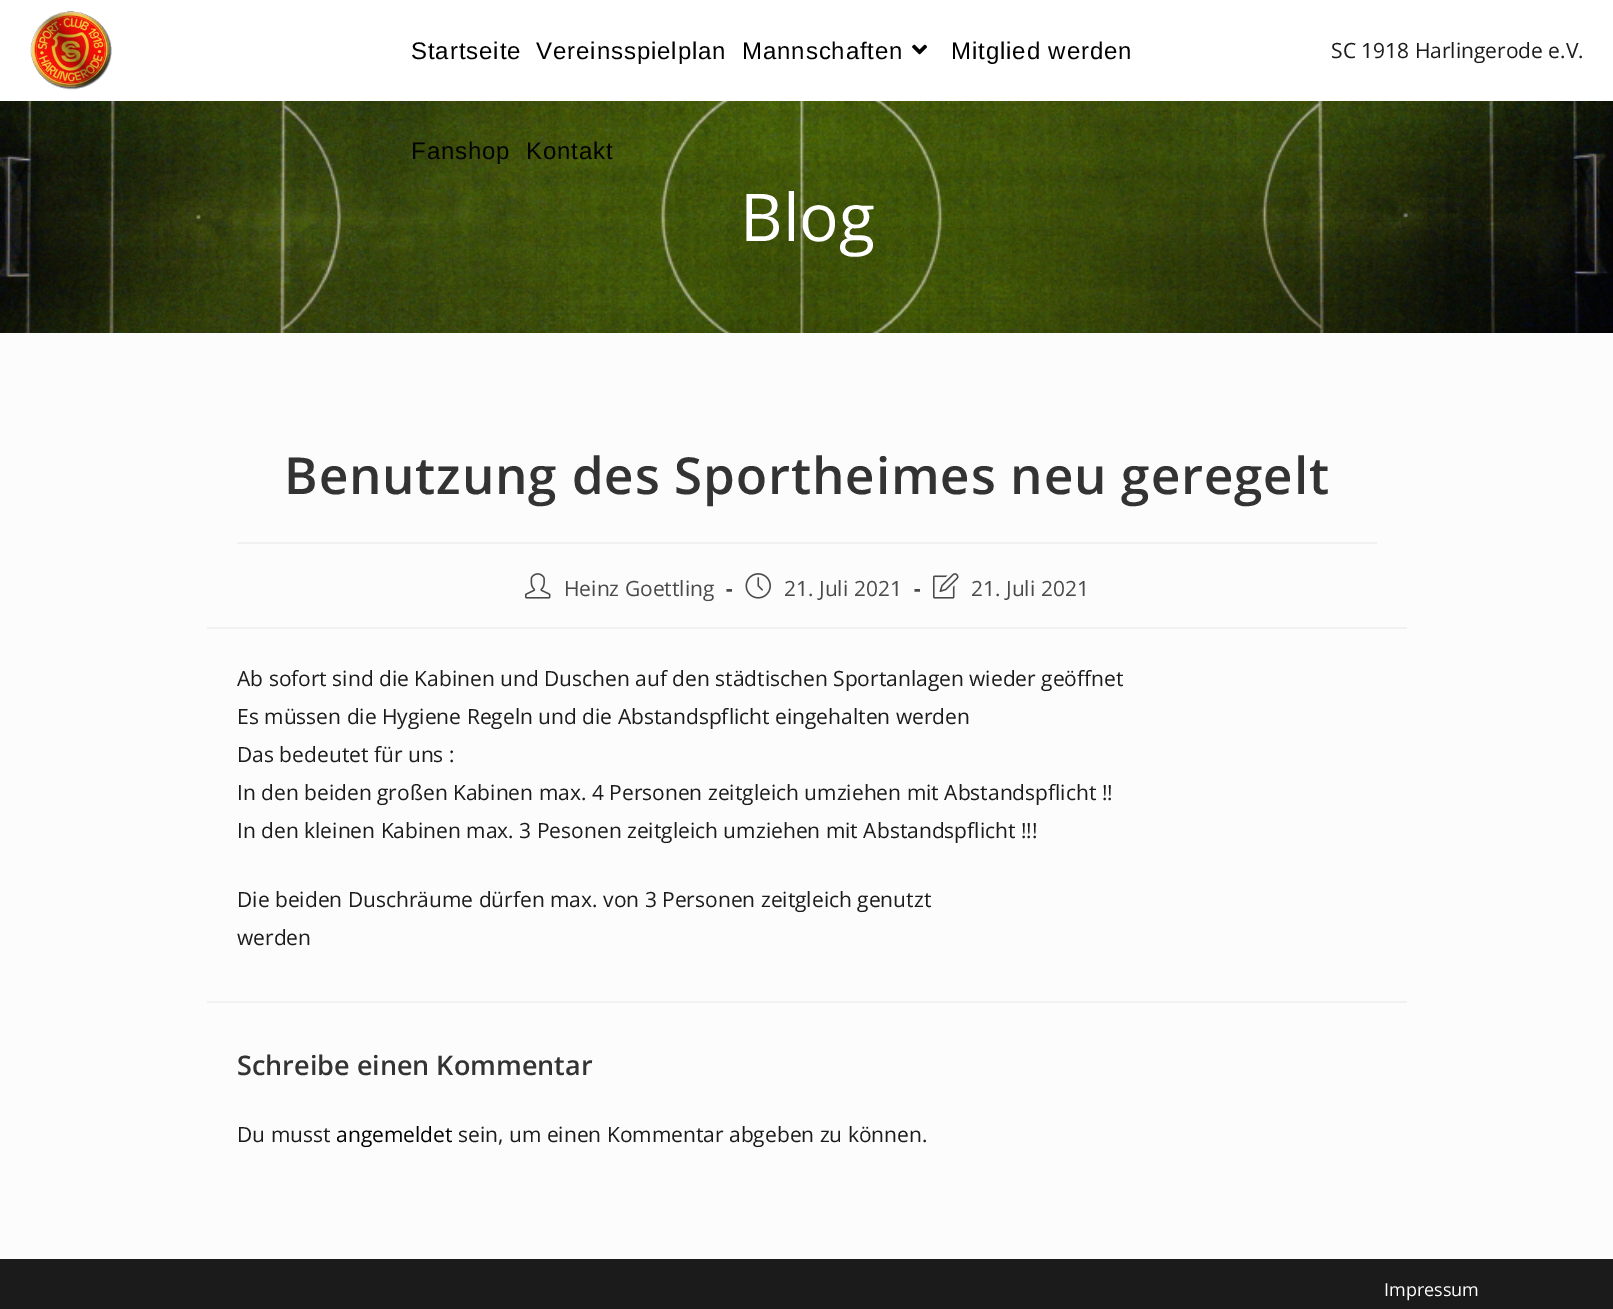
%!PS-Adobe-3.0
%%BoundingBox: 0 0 1613 1309
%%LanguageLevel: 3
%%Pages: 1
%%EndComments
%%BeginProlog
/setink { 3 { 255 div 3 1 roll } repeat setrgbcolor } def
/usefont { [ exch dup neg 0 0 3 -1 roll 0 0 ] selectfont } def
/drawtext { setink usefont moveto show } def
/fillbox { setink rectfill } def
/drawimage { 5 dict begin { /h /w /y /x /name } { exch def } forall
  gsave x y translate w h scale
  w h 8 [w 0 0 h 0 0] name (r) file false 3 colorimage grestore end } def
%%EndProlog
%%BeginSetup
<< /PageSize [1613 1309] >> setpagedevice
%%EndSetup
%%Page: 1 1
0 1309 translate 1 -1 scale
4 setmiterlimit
0 0 1613 1309 252 252 252 fillbox
0 0 1613 101 255 255 255 fillbox
(assets/img1.rgb) 30 11 82 79 drawimage
/LiberationSans-Regular 24 usefont
2 2 2 setink
411 59 moveto 0.9 0 (Startseite) ashow
536 59 moveto 0.9 0 (Vereinsspielplan) ashow
742 59 moveto 0.9 0 (Mannschaften) ashow
(assets/img2.rgb) 912 44 15 11 drawimage
951 59 moveto 0.9 0 (Mitglied werden) ashow
(assets/img3.rgb) 0 101 1613 232 drawimage
411 159 moveto 0.9 0 (Fanshop) ashow
526 159 moveto 0.9 0 (Kontakt) ashow
(SC 1918 Harlingerode e.V.) 1331 58 /OpenSans-Regular 21 28 28 28 drawtext
(Blog) 740 241 /OpenSans-Regular 66 255 255 255 drawtext
237 542 1140 2 241 241 241 fillbox
/OpenSans-SemiBold 51 usefont
51 51 51 setink
284 494 moveto 0.9 0 (Benutzung des Sportheimes neu geregelt) ashow
207 627 1200 2 241 241 241 fillbox
(assets/img4.rgb) 525 573 26 26 drawimage
(Heinz Goettling) 564 596 /OpenSans-Regular 21 74 74 74 drawtext
(-) 726 596 /OpenSans-Bold 21 74 74 74 drawtext
(assets/img5.rgb) 745 573 26 26 drawimage
(21. Juli 2021) 784 596 /OpenSans-Regular 21 74 74 74 drawtext
(-) 914 596 /OpenSans-Bold 21 74 74 74 drawtext
(assets/img6.rgb) 933 573 26 26 drawimage
(21. Juli 2021) 971 596 /OpenSans-Regular 21 74 74 74 drawtext
(Ab sofort sind die Kabinen und Duschen auf den städtischen Sportanlagen wieder geöffnet) 237 686 /OpenSans-Regular 21 28 28 28 drawtext
(Es müssen die Hygiene Regeln und die Abstandspflicht eingehalten werden) 237 724 /OpenSans-Regular 21 28 28 28 drawtext
(Das bedeutet für uns :) 237 762 /OpenSans-Regular 21 28 28 28 drawtext
(In den beiden großen Kabinen max. 4 Personen zeitgleich umziehen mit Abstandspflicht !!) 237 800 /OpenSans-Regular 21 28 28 28 drawtext
(In den kleinen Kabinen max. 3 Pesonen zeitgleich umziehen mit Abstandspflicht !!!) 237 838 /OpenSans-Regular 21 28 28 28 drawtext
(Die beiden Duschräume dürfen max. von 3 Personen zeitgleich genutzt) 237 907 /OpenSans-Regular 21 28 28 28 drawtext
(werden) 237 945 /OpenSans-Regular 21 28 28 28 drawtext
207 1001 1200 2 241 241 241 fillbox
(Schreibe einen Kommentar) 237 1075 /OpenSans-SemiBold 27 51 51 51 drawtext
(Du musst) 237 1142 /OpenSans-Regular 21 28 28 28 drawtext
(angemeldet) 336 1142 /OpenSans-Regular 21 2 2 2 drawtext
(sein, um einen Kommentar abgeben zu können.) 458 1142 /OpenSans-Regular 21 28 28 28 drawtext
0 1259 1613 50 27 27 27 fillbox
(Impressum) 1384 1296 /OpenSans-Regular 18 255 255 255 drawtext
showpage
%%EOF
